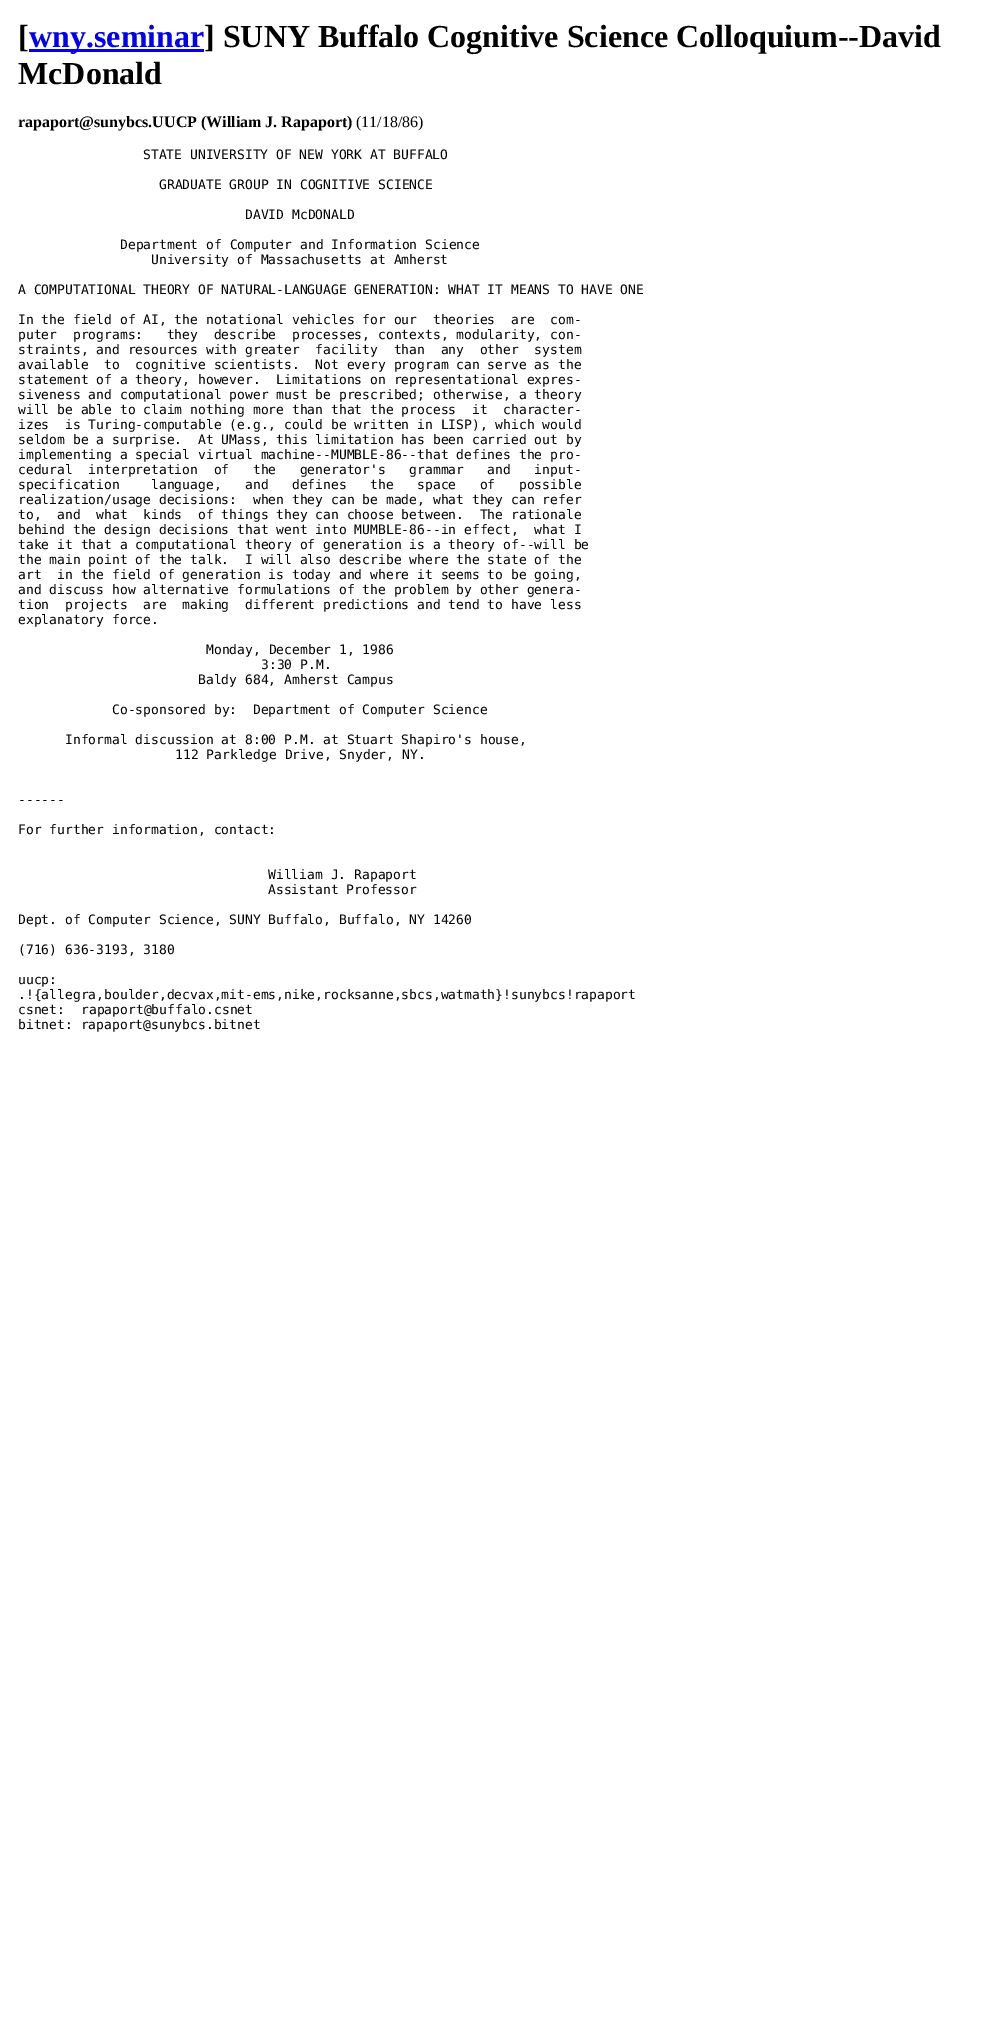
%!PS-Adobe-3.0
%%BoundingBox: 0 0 1000 2025
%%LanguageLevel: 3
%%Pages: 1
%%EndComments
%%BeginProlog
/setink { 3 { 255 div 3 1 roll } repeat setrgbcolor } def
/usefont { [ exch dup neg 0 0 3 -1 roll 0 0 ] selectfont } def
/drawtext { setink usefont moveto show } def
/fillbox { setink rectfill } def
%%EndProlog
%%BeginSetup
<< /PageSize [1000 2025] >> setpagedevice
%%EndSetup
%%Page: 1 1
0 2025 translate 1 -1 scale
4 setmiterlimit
0 0 1000 2025 255 255 255 fillbox
([) 18 47 /LiberationSerif-Bold 32 0 0 0 drawtext
29 49 175 3 0 0 238 fillbox
(wny.seminar) 29 47 /LiberationSerif-Bold 32 0 0 238 drawtext
(] SUNY Buffalo Cognitive Science Colloquium--David) 204 47 /LiberationSerif-Bold 32 0 0 0 drawtext
(McDonald) 18 84 /LiberationSerif-Bold 32 0 0 0 drawtext
(rapaport@sunybcs.UUCP \(William J. Rapaport\)) 18 127 /LiberationSerif-Bold 16 0 0 0 drawtext
(\(11/18/86\)) 356 127 /LiberationSerif-Regular 16 0 0 0 drawtext
(STATE UNIVERSITY OF NEW YORK AT BUFFALO) 143 159 /DejaVuSansMono-Regular 13 0 0 0 drawtext
(GRADUATE GROUP IN COGNITIVE SCIENCE) 159 189 /DejaVuSansMono-Regular 13 0 0 0 drawtext
(DAVID McDONALD) 245 219 /DejaVuSansMono-Regular 13 0 0 0 drawtext
(Department of Computer and Information Science) 120 249 /DejaVuSansMono-Regular 13 0 0 0 drawtext
(University of Massachusetts at Amherst) 151 264 /DejaVuSansMono-Regular 13 0 0 0 drawtext
(A COMPUTATIONAL THEORY OF NATURAL-LANGUAGE GENERATION: WHAT IT MEANS TO HAVE ONE) 18 294 /DejaVuSansMono-Regular 13 0 0 0 drawtext
(In the field of AI, the notational vehicles for our  theories  are  com-) 18 324 /DejaVuSansMono-Regular 13 0 0 0 drawtext
(puter  programs:   they  describe  processes, contexts, modularity, con-) 18 339 /DejaVuSansMono-Regular 13 0 0 0 drawtext
(straints, and resources with greater  facility  than  any  other  system) 18 354 /DejaVuSansMono-Regular 13 0 0 0 drawtext
(available  to  cognitive scientists.  Not every program can serve as the) 18 369 /DejaVuSansMono-Regular 13 0 0 0 drawtext
(statement of a theory, however.  Limitations on representational expres-) 18 384 /DejaVuSansMono-Regular 13 0 0 0 drawtext
(siveness and computational power must be prescribed; otherwise, a theory) 18 399 /DejaVuSansMono-Regular 13 0 0 0 drawtext
(will be able to claim nothing more than that the process  it  character-) 18 414 /DejaVuSansMono-Regular 13 0 0 0 drawtext
(izes  is Turing-computable \(e.g., could be written in LISP\), which would) 18 429 /DejaVuSansMono-Regular 13 0 0 0 drawtext
(seldom be a surprise.  At UMass, this limitation has been carried out by) 18 444 /DejaVuSansMono-Regular 13 0 0 0 drawtext
(implementing a special virtual machine--MUMBLE-86--that defines the pro-) 18 459 /DejaVuSansMono-Regular 13 0 0 0 drawtext
(cedural  interpretation  of   the   generator's   grammar   and   input-) 18 474 /DejaVuSansMono-Regular 13 0 0 0 drawtext
(specification    language,   and   defines   the   space   of   possible) 18 489 /DejaVuSansMono-Regular 13 0 0 0 drawtext
(realization/usage decisions:  when they can be made, what they can refer) 18 504 /DejaVuSansMono-Regular 13 0 0 0 drawtext
(to,  and  what  kinds  of things they can choose between.  The rationale) 18 519 /DejaVuSansMono-Regular 13 0 0 0 drawtext
(behind the design decisions that went into MUMBLE-86--in effect,  what I) 18 534 /DejaVuSansMono-Regular 13 0 0 0 drawtext
(take it that a computational theory of generation is a theory of--will be) 18 549 /DejaVuSansMono-Regular 13 0 0 0 drawtext
(the main point of the talk.  I will also describe where the state of the) 18 564 /DejaVuSansMono-Regular 13 0 0 0 drawtext
(art  in the field of generation is today and where it seems to be going,) 18 579 /DejaVuSansMono-Regular 13 0 0 0 drawtext
(and discuss how alternative formulations of the problem by other genera-) 18 594 /DejaVuSansMono-Regular 13 0 0 0 drawtext
(tion  projects  are  making  different predictions and tend to have less) 18 609 /DejaVuSansMono-Regular 13 0 0 0 drawtext
(explanatory force.) 18 624 /DejaVuSansMono-Regular 13 0 0 0 drawtext
(Monday, December 1, 1986) 206 654 /DejaVuSansMono-Regular 13 0 0 0 drawtext
(3:30 P.M.) 261 669 /DejaVuSansMono-Regular 13 0 0 0 drawtext
(Baldy 684, Amherst Campus) 198 684 /DejaVuSansMono-Regular 13 0 0 0 drawtext
(Co-sponsored by:  Department of Computer Science) 112 714 /DejaVuSansMono-Regular 13 0 0 0 drawtext
(Informal discussion at 8:00 P.M. at Stuart Shapiro's house,) 65 744 /DejaVuSansMono-Regular 13 0 0 0 drawtext
(112 Parkledge Drive, Snyder, NY.) 175 759 /DejaVuSansMono-Regular 13 0 0 0 drawtext
(------) 18 804 /DejaVuSansMono-Regular 13 0 0 0 drawtext
(For further information, contact:) 18 834 /DejaVuSansMono-Regular 13 0 0 0 drawtext
(William J. Rapaport) 268 879 /DejaVuSansMono-Regular 13 0 0 0 drawtext
(Assistant Professor) 268 894 /DejaVuSansMono-Regular 13 0 0 0 drawtext
(Dept. of Computer Science, SUNY Buffalo, Buffalo, NY 14260) 18 924 /DejaVuSansMono-Regular 13 0 0 0 drawtext
(\(716\) 636-3193, 3180) 18 954 /DejaVuSansMono-Regular 13 0 0 0 drawtext
(uucp:) 18 984 /DejaVuSansMono-Regular 13 0 0 0 drawtext
(.!{allegra,boulder,decvax,mit-ems,nike,rocksanne,sbcs,watmath}!sunybcs!rapaport) 18 999 /DejaVuSansMono-Regular 13 0 0 0 drawtext
(csnet:) 18 1014 /DejaVuSansMono-Regular 13 0 0 0 drawtext
(rapaport@buffalo.csnet) 81 1014 /DejaVuSansMono-Regular 13 0 0 0 drawtext
(bitnet: rapaport@sunybcs.bitnet) 18 1029 /DejaVuSansMono-Regular 13 0 0 0 drawtext
showpage
%%EOF
